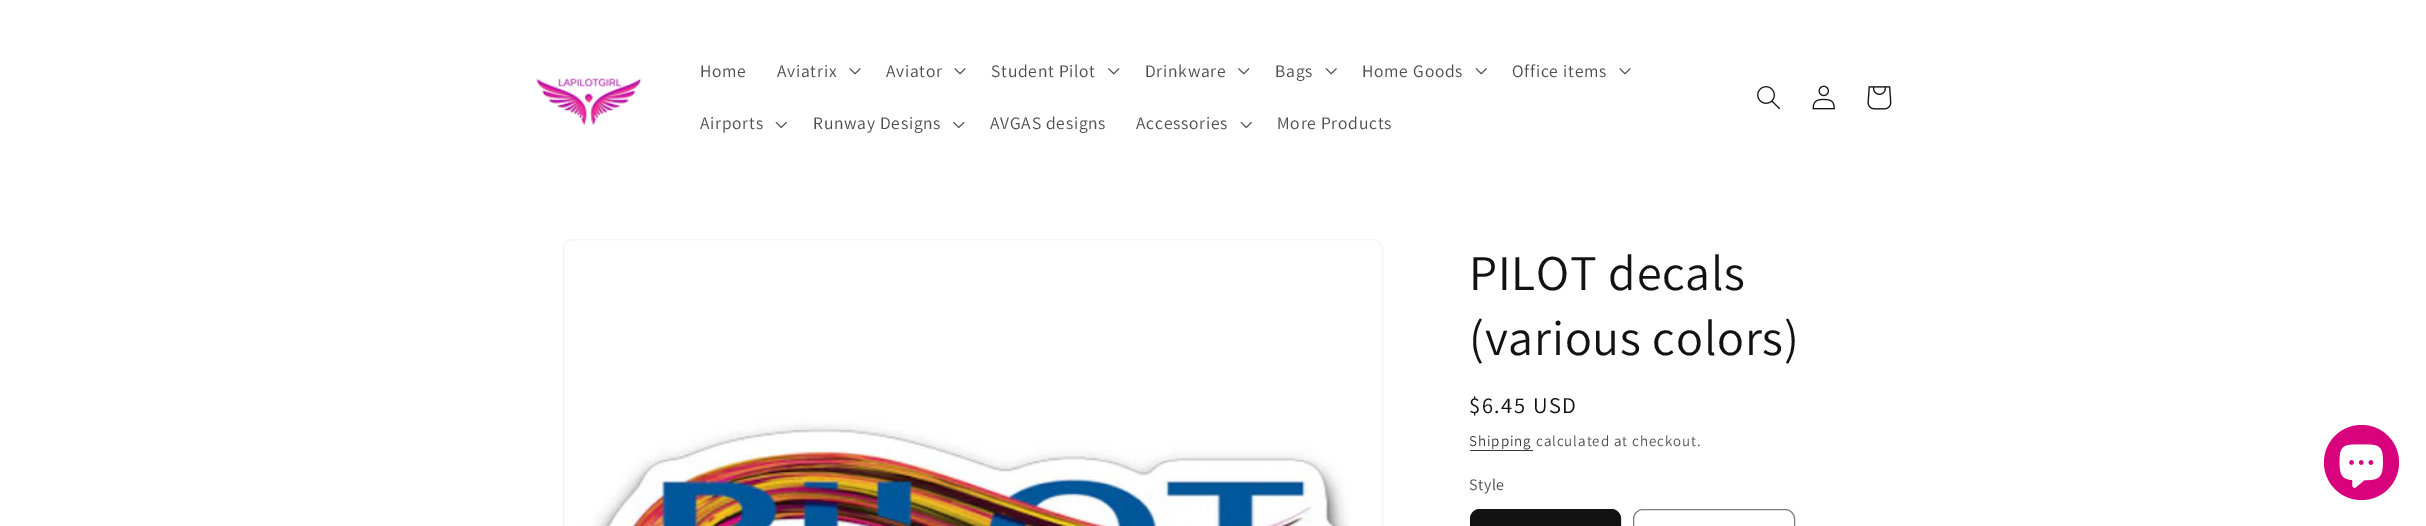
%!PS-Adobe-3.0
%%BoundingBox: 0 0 2426 526
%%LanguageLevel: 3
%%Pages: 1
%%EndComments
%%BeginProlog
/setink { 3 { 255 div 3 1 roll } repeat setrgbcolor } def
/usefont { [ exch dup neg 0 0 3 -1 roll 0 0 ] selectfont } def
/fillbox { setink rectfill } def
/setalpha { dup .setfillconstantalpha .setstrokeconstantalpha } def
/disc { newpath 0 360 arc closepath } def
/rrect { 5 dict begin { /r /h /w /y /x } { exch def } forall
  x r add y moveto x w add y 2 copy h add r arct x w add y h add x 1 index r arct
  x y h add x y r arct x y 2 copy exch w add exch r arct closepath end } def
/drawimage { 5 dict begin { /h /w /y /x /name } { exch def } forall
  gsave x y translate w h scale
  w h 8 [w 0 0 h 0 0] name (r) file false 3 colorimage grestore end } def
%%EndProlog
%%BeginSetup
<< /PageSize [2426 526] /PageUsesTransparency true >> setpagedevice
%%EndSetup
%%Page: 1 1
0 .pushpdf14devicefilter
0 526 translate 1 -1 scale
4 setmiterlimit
0 0 2426 526 255 255 255 fillbox
(assets/img1.rgb) 536 78 106 48 drawimage
/Assistant-Regular 17.5 usefont
77 77 77 setink
700 77 moveto 0.75 0 (Home) ashow
777 77 moveto 0.75 0 (Aviatrix) ashow
(assets/img2.rgb) 849 68 12 7 drawimage
886 77 moveto 0.75 0 (Aviator) ashow
(assets/img2.rgb) 954 68 12 7 drawimage
991 77 moveto 0.75 0 (Student Pilot) ashow
(assets/img3.rgb) 1108 68 12 7 drawimage
1145 77 moveto 0.75 0 (Drinkware) ashow
(assets/img3.rgb) 1238 68 12 7 drawimage
1275 77 moveto 0.75 0 (Bags) ashow
(assets/img4.rgb) 1325 68 12 7 drawimage
1362 77 moveto 0.75 0 (Home Goods) ashow
(assets/img4.rgb) 1475 68 12 7 drawimage
1512 77 moveto 0.75 0 (Office items) ashow
(assets/img2.rgb) 1619 68 12 7 drawimage
700 129 moveto 0.75 0 (Airports) ashow
(assets/img5.rgb) 775 121 12 8 drawimage
813 129 moveto 0.75 0 (Runway Designs) ashow
(assets/img6.rgb) 953 121 12 8 drawimage
990 129 moveto 0.75 0 (AVGAS designs) ashow
1136 129 moveto 0.75 0 (Accessories) ashow
(assets/img5.rgb) 1240 121 12 8 drawimage
1277 129 moveto 0.75 0 (More Products) ashow
(assets/img7.rgb) 1757 86 23 24 drawimage
(assets/img8.rgb) 1812 85 23 25 drawimage
(assets/img9.rgb) 1867 86 25 24 drawimage
243 243 243 setink
563.5 239.5 819 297 9.5 rrect stroke
(assets/img10.rgb) 566 242 784 284 drawimage
/Assistant-Regular 50 usefont
18 18 18 setink
1469 290 moveto 0.75 0 (PILOT decals) ashow
1469 355 moveto 0.75 0 (\(various colors\)) ashow
/Assistant-Regular 22.5 usefont
1469 413 moveto 1.6 0 ($6.45 USD) ashow
/Assistant-Regular 15 usefont
54 54 54 setink
1469 446 moveto 0.9 0 (Shipping) ashow
1470 450 63 1 54 54 54 fillbox
77 77 77 setink
1536 446 moveto 0.9 0 (calculated at checkout.) ashow
/Assistant-Regular 16 usefont
1469 490 moveto 0.5 0 (Style) ashow
18 18 18 setink
1470 509 151 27 10 rrect fill
0.55 setalpha
1470.5 509.5 150 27 9.5 rrect stroke
1 setalpha
125 125 125 setink
1633.5 509.5 161 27 9.5 rrect stroke
217 2 125 setink
2361.5 462.5 37.5 disc fill
(assets/img11.rgb) 2339 444 44 44 drawimage
.poppdf14devicefilter showpage
%%EOF
